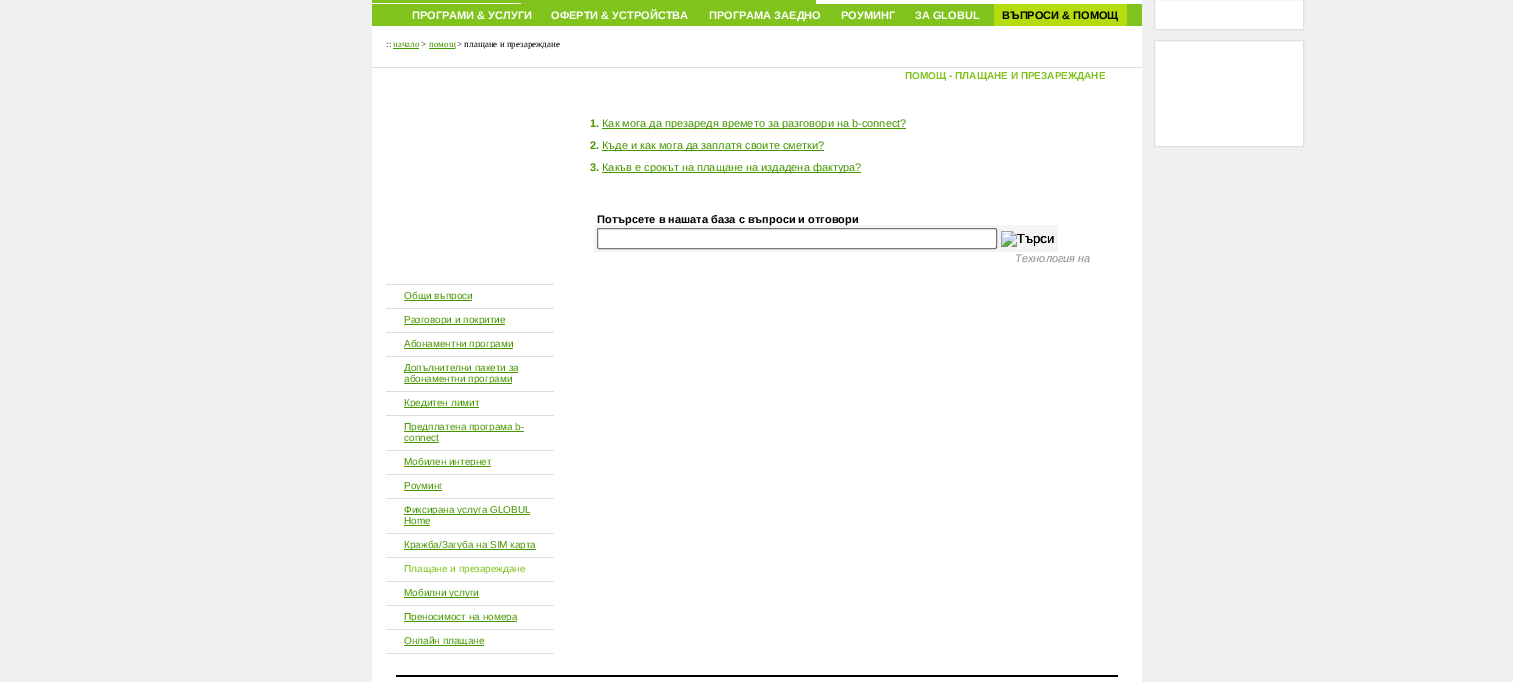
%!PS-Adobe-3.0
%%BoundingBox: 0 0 1513 682
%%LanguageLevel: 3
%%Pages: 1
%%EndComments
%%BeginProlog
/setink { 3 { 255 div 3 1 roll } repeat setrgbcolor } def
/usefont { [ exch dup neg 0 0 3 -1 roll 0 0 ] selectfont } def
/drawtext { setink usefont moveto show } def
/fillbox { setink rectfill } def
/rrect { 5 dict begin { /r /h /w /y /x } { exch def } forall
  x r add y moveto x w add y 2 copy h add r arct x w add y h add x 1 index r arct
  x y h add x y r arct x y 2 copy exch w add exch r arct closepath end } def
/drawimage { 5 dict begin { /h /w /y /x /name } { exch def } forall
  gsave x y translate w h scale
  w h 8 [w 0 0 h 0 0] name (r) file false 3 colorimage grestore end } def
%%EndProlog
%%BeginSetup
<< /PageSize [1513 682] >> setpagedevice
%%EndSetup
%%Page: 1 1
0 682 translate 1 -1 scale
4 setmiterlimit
0 0 1513 682 240 240 240 fillbox
372 0 770 682 255 255 255 fillbox
372 0 149 3 127 195 28 fillbox
521 0 295 4 127 195 28 fillbox
372 4 770 22 127 195 28 fillbox
(ПРОГРАМИ & УСЛУГИ) 412 19 /LiberationSans-Bold 11 255 255 255 drawtext
(ОФЕРТИ & УСТРОЙСТВА) 551 19 /LiberationSans-Bold 11 255 255 255 drawtext
(ПРОГРАМА ЗАЕДНО) 709 19 /LiberationSans-Bold 11 255 255 255 drawtext
(РОУМИНГ) 841 19 /LiberationSans-Bold 11 255 255 255 drawtext
(ЗА GLOBUL) 915 19 /LiberationSans-Bold 11 255 255 255 drawtext
994 4 133 22 181 220 16 fillbox
(ВЪПРОСИ & ПОМОЩ) 1002 19 /LiberationSans-Bold 11 0 0 0 drawtext
(::) 386 47 /LiberationSerif-Regular 9 0 0 0 drawtext
(начало) 393 47 /LiberationSerif-Regular 9 70 150 0 drawtext
393 48 26 1 70 150 0 fillbox
(>) 421 47 /LiberationSerif-Regular 9 0 0 0 drawtext
429 48 26 1 70 150 0 fillbox
(помощ) 429 47 /LiberationSerif-Regular 9 70 150 0 drawtext
(> плащанe и презареждане) 457 47 /LiberationSerif-Regular 9 0 0 0 drawtext
372 67 770 1 220 220 220 fillbox
(ПОМОЩ - ПЛАЩАНE И ПРЕЗАРЕЖДАНЕ) 905 79 /LiberationSans-Bold 10 127 195 28 drawtext
(1.) 590 127 /LiberationSans-Bold 11 70 150 0 drawtext
602 128 304 1 70 150 0 fillbox
(Как мога да презаредя времето за разговори на b-connect?) 602 127 /LiberationSans-Regular 11 70 150 0 drawtext
(2.) 590 149 /LiberationSans-Bold 11 70 150 0 drawtext
602 150 222 1 70 150 0 fillbox
(Къде и как мога да заплатя своите сметки?) 602 149 /LiberationSans-Regular 11 70 150 0 drawtext
(3.) 590 171 /LiberationSans-Bold 11 70 150 0 drawtext
602 172 259 1 70 150 0 fillbox
(Какъв е срокът на плащане на издадена фактура?) 602 171 /LiberationSans-Regular 11 70 150 0 drawtext
594 225 464 27 244 244 244 fillbox
(Потърсете в нашата база с въпроси и отговори) 597 223 /LiberationSans-Bold 11 0 0 0 drawtext
255 255 255 setink
597.5 228.5 399 20 1.5 rrect gsave fill grestore
118 118 118 setink
stroke
(assets/img1.rgb) 1001 231 53 16 drawimage
(Търси) 1017 243 /LiberationSans-Regular 13 0 0 0 drawtext
(Технология на) 1015 262 /LiberationSans-Italic 11 140 140 140 drawtext
386 284 168 1 220 220 220 fillbox
404 300 68 1 70 150 0 fillbox
(Общи въпроси) 404 299 /LiberationSans-Regular 10 70 150 0 drawtext
386 308 168 1 220 220 220 fillbox
404 324 101 1 70 150 0 fillbox
(Разговори и покритие) 404 323 /LiberationSans-Regular 10 70 150 0 drawtext
386 332 168 1 220 220 220 fillbox
404 348 109 1 70 150 0 fillbox
(Абонаментни програми) 404 347 /LiberationSans-Regular 10 70 150 0 drawtext
386 356 168 1 220 220 220 fillbox
404 372 114 1 70 150 0 fillbox
(Допълнителни пакети за) 404 371 /LiberationSans-Regular 10 70 150 0 drawtext
404 383 108 1 70 150 0 fillbox
(абонаментни програми) 404 382 /LiberationSans-Regular 10 70 150 0 drawtext
386 391 168 1 220 220 220 fillbox
404 407 75 1 70 150 0 fillbox
(Кредитен лимит) 404 406 /LiberationSans-Regular 10 70 150 0 drawtext
386 415 168 1 220 220 220 fillbox
404 431 120 1 70 150 0 fillbox
(Предплатена програма b-) 404 430 /LiberationSans-Regular 10 70 150 0 drawtext
(connect) 404 441 /LiberationSans-Regular 10 70 150 0 drawtext
404 442 35 1 70 150 0 fillbox
386 450 168 1 220 220 220 fillbox
404 466 87 1 70 150 0 fillbox
(Мобилен интернет) 404 465 /LiberationSans-Regular 10 70 150 0 drawtext
386 474 168 1 220 220 220 fillbox
404 490 38 1 70 150 0 fillbox
(Роуминг) 404 489 /LiberationSans-Regular 10 70 150 0 drawtext
386 498 168 1 220 220 220 fillbox
404 514 126 1 70 150 0 fillbox
(Фиксиранa услугa GLOBUL) 404 513 /LiberationSans-Regular 10 70 150 0 drawtext
(Home) 404 524 /LiberationSans-Regular 10 70 150 0 drawtext
404 525 26 1 70 150 0 fillbox
386 533 168 1 220 220 220 fillbox
404 549 132 1 70 150 0 fillbox
(Кражба/Загуба на SIM карта) 404 548 /LiberationSans-Regular 10 70 150 0 drawtext
386 557 168 1 220 220 220 fillbox
(Плащанe и презареждане) 404 572 /LiberationSans-Regular 10 127 195 28 drawtext
386 581 168 1 220 220 220 fillbox
404 597 75 1 70 150 0 fillbox
(Мобилни услуги) 404 596 /LiberationSans-Regular 10 70 150 0 drawtext
386 605 168 1 220 220 220 fillbox
404 621 113 1 70 150 0 fillbox
(Преносимост на номера) 404 620 /LiberationSans-Regular 10 70 150 0 drawtext
386 629 168 1 220 220 220 fillbox
404 645 80 1 70 150 0 fillbox
(Онлайн плащане) 404 644 /LiberationSans-Regular 10 70 150 0 drawtext
386 653 168 1 220 220 220 fillbox
396 675 722 2 0 0 0 fillbox
255 255 255 setink
1154.5 -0.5 moveto 1303.5 -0.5 lineto 1303.5 29.5 lineto 1154.5 29.5 lineto closepath gsave fill grestore
224 224 224 setink
stroke
255 255 255 setink
1154.5 40.5 moveto 1303.5 40.5 lineto 1303.5 146.5 lineto 1154.5 146.5 lineto closepath gsave fill grestore
224 224 224 setink
stroke
showpage
%%EOF
